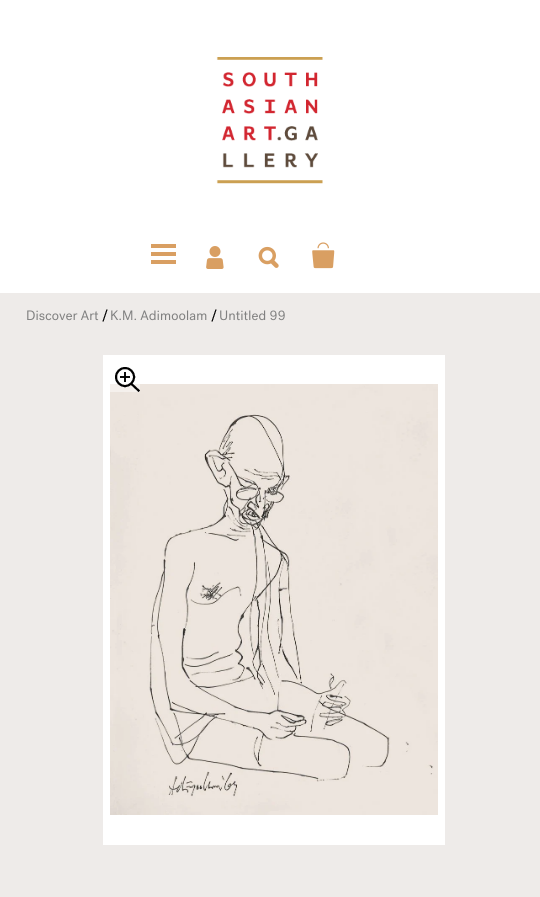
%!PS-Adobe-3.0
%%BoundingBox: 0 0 540 897
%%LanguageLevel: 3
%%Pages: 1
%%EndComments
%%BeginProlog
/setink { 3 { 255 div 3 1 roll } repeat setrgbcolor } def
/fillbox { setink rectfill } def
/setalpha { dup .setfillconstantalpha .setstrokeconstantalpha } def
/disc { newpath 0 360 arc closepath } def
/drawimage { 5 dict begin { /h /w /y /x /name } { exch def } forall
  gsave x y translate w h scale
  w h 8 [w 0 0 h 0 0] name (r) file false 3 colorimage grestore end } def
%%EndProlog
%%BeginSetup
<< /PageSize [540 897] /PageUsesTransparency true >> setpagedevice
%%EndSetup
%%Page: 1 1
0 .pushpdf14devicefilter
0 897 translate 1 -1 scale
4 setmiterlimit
0 0 540 897 255 255 255 fillbox
(assets/img1.rgb) 216 57 107 127 drawimage
151 244 25 4 217 159 98 fillbox
151 252 25 4 217 159 98 fillbox
151 260 25 4 217 159 98 fillbox
(assets/img2.rgb) 206 246 18 23 drawimage
(assets/img3.rgb) 258 246 21 22 drawimage
(assets/img4.rgb) 312 242 23 27 drawimage
0 293 540 604 238 235 233 fillbox
(assets/img5.rgb) 27 310 72 11 drawimage
0 0 0 setink
102.5 321.5 moveto 106.5 309.5 lineto 107.5 309.5 lineto 103.5 321.5 lineto closepath fill
(assets/img6.rgb) 111 310 96 11 drawimage
211.5 321.5 moveto 215.5 309.5 lineto 216.5 309.5 lineto 212.5 321.5 lineto closepath fill
(assets/img7.rgb) 220 310 65 11 drawimage
103 355 342 490 255 255 255 fillbox
(assets/img8.rgb) 110 384 328 431 drawimage
0.45 setalpha
110 384 30 8 255 255 255 fillbox
1 setalpha
0 0 0 setink
1.9 setlinewidth
125 377 9 disc stroke
124 372 2 10 13 13 13 fillbox
0.95 setalpha
120 376 10 2 0 0 0 fillbox
1 setalpha
2 setlinecap
131.5 384 moveto 138.5 390.5 lineto stroke
.poppdf14devicefilter showpage
%%EOF
